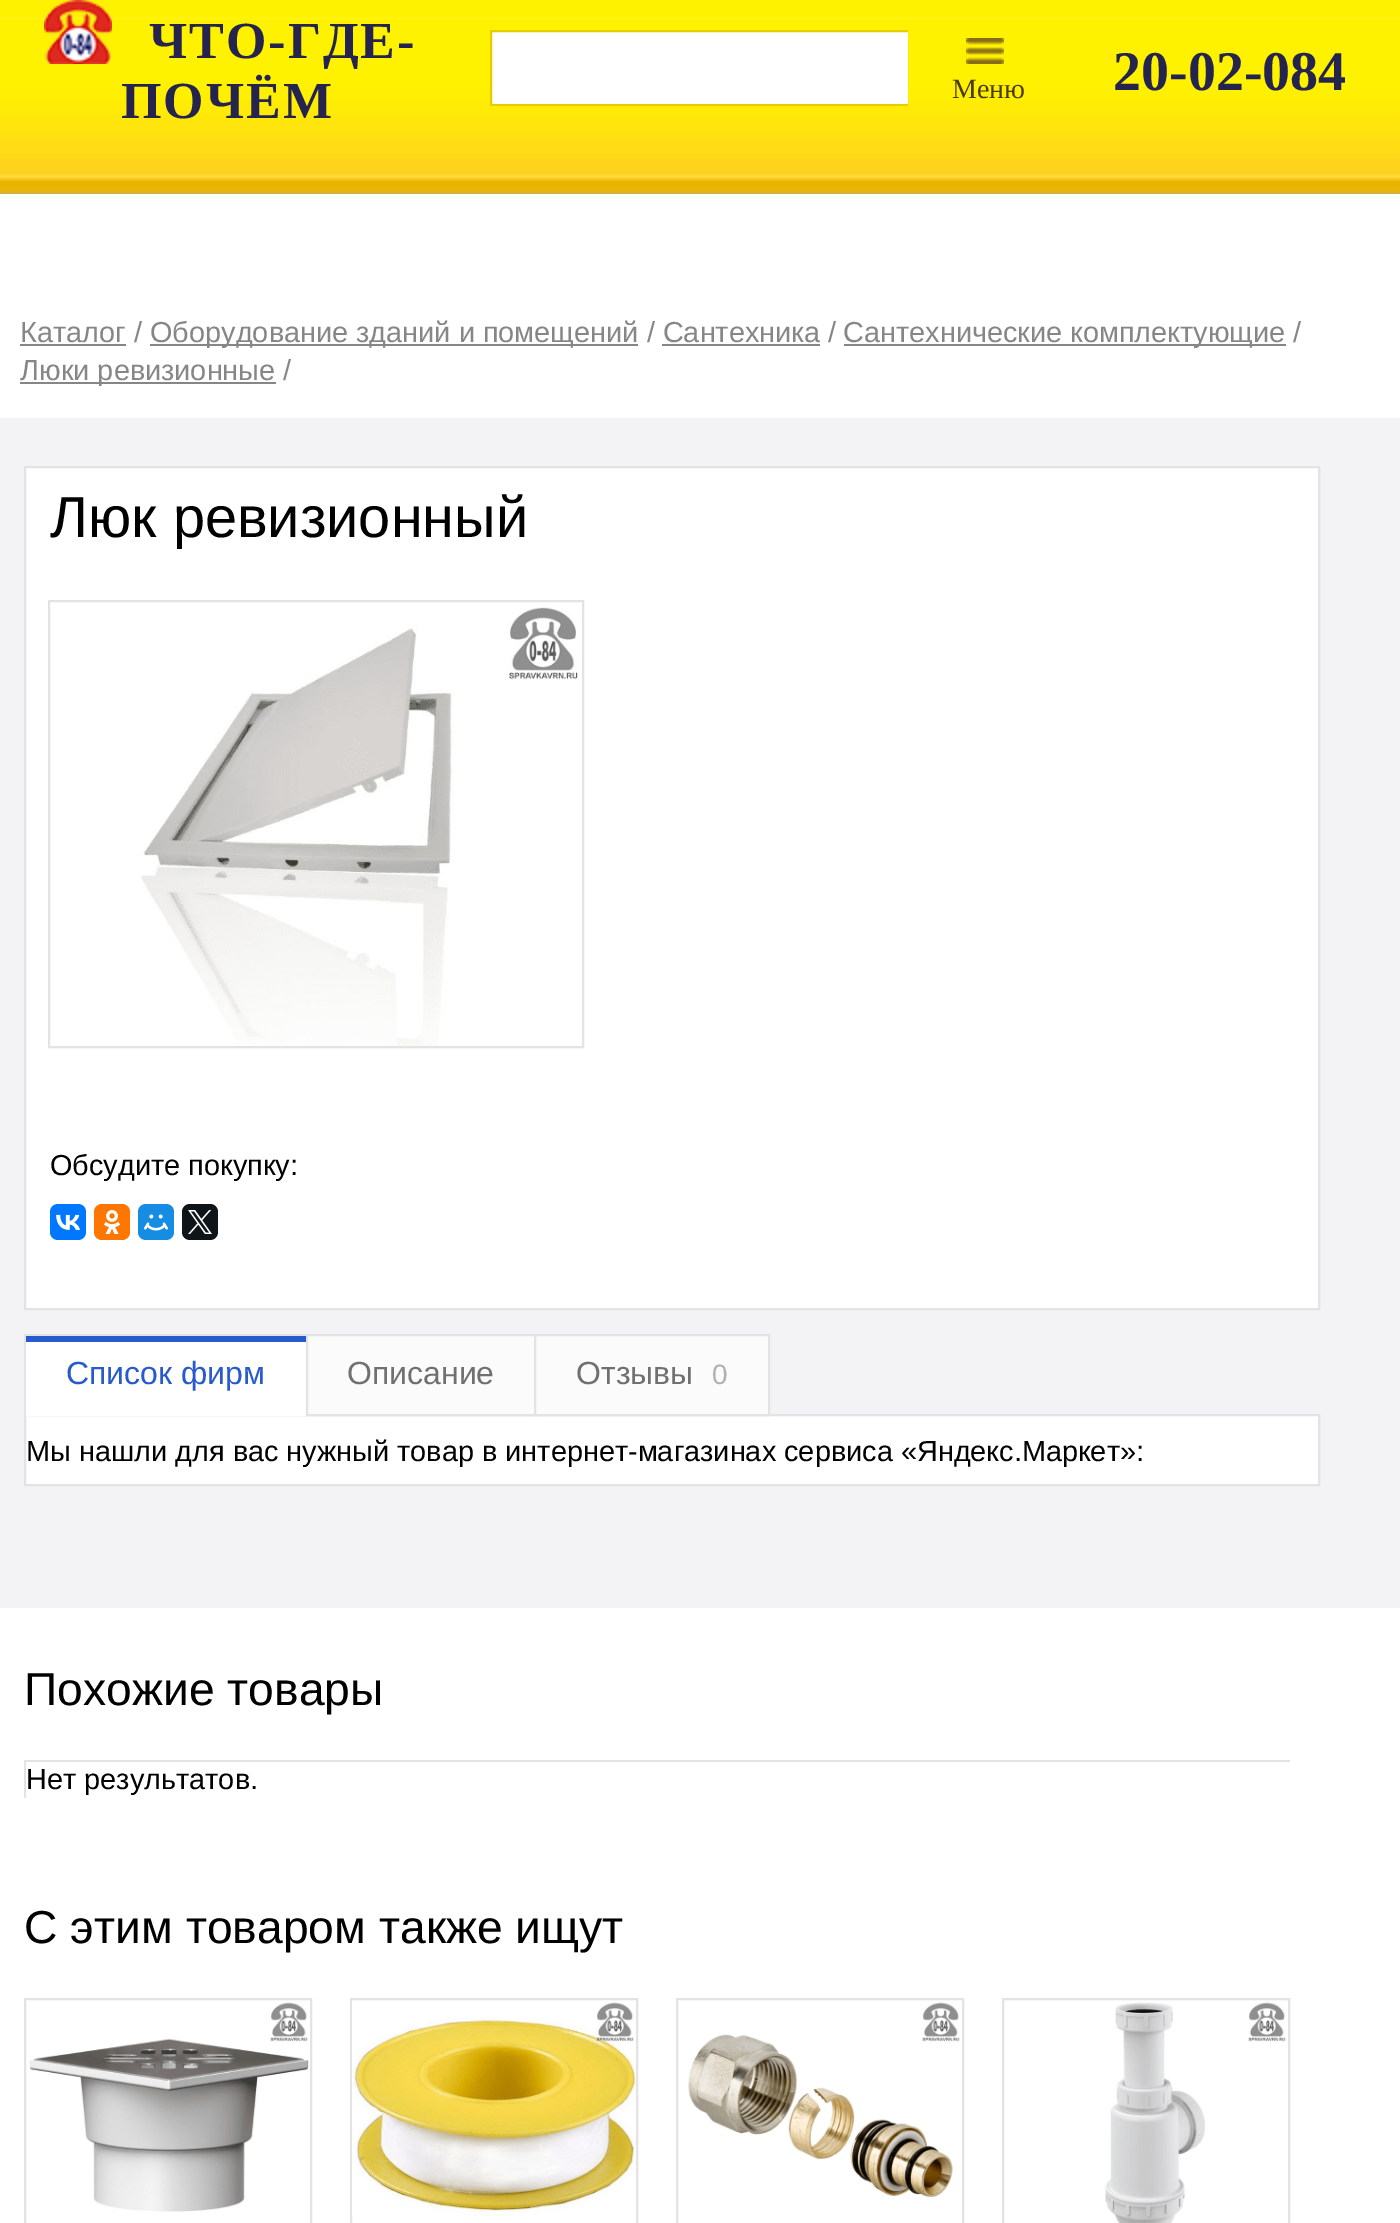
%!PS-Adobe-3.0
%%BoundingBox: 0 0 1400 2223
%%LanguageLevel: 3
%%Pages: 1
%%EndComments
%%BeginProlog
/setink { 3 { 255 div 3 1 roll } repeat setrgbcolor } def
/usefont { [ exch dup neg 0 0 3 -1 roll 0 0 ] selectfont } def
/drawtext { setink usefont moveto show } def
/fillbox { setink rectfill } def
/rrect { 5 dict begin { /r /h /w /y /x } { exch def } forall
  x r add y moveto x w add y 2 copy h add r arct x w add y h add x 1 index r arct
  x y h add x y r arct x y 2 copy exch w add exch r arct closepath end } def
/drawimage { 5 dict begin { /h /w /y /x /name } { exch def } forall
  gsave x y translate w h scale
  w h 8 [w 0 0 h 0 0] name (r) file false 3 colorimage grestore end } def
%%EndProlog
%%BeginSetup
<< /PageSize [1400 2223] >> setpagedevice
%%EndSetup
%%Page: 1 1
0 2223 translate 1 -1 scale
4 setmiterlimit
0 0 1400 2223 243 243 245 fillbox
(assets/img1.rgb) 0 0 1400 194 drawimage
(assets/img2.rgb) 44 0 68 64 drawimage
/LiberationSerif-Bold 52 usefont
36 36 79 setink
149 58 moveto 2 0 (ЧТО-ГДЕ-) ashow
121 118 moveto 2 0 (ПОЧЁМ) ashow
492 32 416 72 255 255 255 fillbox
gsave
470 0 438 106 rectclip
230 204 0 setink
2 setlinewidth
491 31 436 74 rectstroke
grestore
(assets/img3.rgb) 966 38 38 26 drawimage
(Mеню) 952 98 /LiberationSerif-Regular 28 74 58 6 drawtext
(20-02-084) 1113 90 /LiberationSerif-Bold 56 36 36 79 drawtext
0 194 1400 224 255 255 255 fillbox
(Каталог /) 20 342 /LiberationSans-Regular 28.9 134 134 134 drawtext
20 344 106 2 134 134 134 fillbox
150 344 488 2 134 134 134 fillbox
(Оборудование зданий и помещений / Сантехника /) 150 342 /LiberationSans-Regular 28.9 134 134 134 drawtext
844 344 442 2 134 134 134 fillbox
(Сантехнические комплектующие /) 843 342 /LiberationSans-Regular 28.9 134 134 134 drawtext
662 344 158 2 134 134 134 fillbox
20 382 256 2 134 134 134 fillbox
(Люки ревизионные /) 20 380 /LiberationSans-Regular 28.9 134 134 134 drawtext
255 255 255 setink
25 467 moveto 1319 467 lineto 1319 1309 lineto 25 1309 lineto closepath gsave fill grestore
227 227 227 setink
2 setlinewidth
stroke
(Люк ревизионный) 50 537 /LiberationSans-Regular 57.75 0 0 0 drawtext
227 227 227 setink
49 601 534 446 rectstroke
(assets/img4.rgb) 141 607 437 439 drawimage
(Обсудите покупку:) 50 1175 /LiberationSans-Regular 28.9 0 0 0 drawtext
0 119 255 setink
50 1204 36 36 8 rrect fill
(assets/img5.rgb) 56 1214 24 16 drawimage
255 119 0 setink
94 1204 36 36 8 rrect fill
(assets/img6.rgb) 104 1210 17 24 drawimage
22 141 226 setink
138 1204 36 36 8 rrect fill
(assets/img7.rgb) 144 1214 24 17 drawimage
15 20 25 setink
182 1204 36 36 8 rrect fill
(assets/img8.rgb) 188 1210 24 24 drawimage
255 255 255 setink
25 1415 moveto 1319 1415 lineto 1319 1485 lineto 25 1485 lineto closepath gsave fill grestore
227 227 227 setink
stroke
26 1342 280 74 255 255 255 fillbox
251 251 251 setink
307 1335 moveto 535 1335 lineto 535 1415 lineto 307 1415 lineto closepath gsave fill grestore
227 227 227 setink
stroke
24 1334 284 2 227 227 227 fillbox
24 1334 2 82 227 227 227 fillbox
26 1336 280 6 39 90 205 fillbox
(Список фирм) 66 1384 /LiberationSans-Regular 32 39 90 205 drawtext
(Описание) 347 1384 /LiberationSans-Regular 32 112 112 112 drawtext
251 251 251 setink
535 1335 moveto 769 1335 lineto 769 1415 lineto 535 1415 lineto closepath gsave fill grestore
227 227 227 setink
stroke
(Отзывы) 576 1384 /LiberationSans-Regular 32 112 112 112 drawtext
(0) 712 1384 /LiberationSans-Regular 28 176 176 176 drawtext
(Мы нашли для вас нужный товар в интернет-магазинах сервиса «Яндекс.Маркет»:) 26 1461 /LiberationSans-Regular 28.9 0 0 0 drawtext
0 1608 1400 615 255 255 255 fillbox
(Похожие товары) 24 1705 /LiberationSans-Regular 46.25 0 0 0 drawtext
24 1760 1266 2 227 227 227 fillbox
24 1760 2 38 227 227 227 fillbox
(Нет результатов.) 26 1789 /LiberationSans-Regular 28.9 0 0 0 drawtext
(С этим товаром также ищут) 24 1943 /LiberationSans-Regular 46.25 0 0 0 drawtext
227 227 227 setink
25 1999 286 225 rectstroke
(assets/img9.rgb) 29 2002 280 210 drawimage
351 1999 286 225 rectstroke
(assets/img10.rgb) 352 2002 284 214 drawimage
677 1999 286 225 rectstroke
(assets/img11.rgb) 688 2002 272 195 drawimage
1003 1999 286 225 rectstroke
(assets/img12.rgb) 1105 2002 181 221 drawimage
showpage
%%EOF
